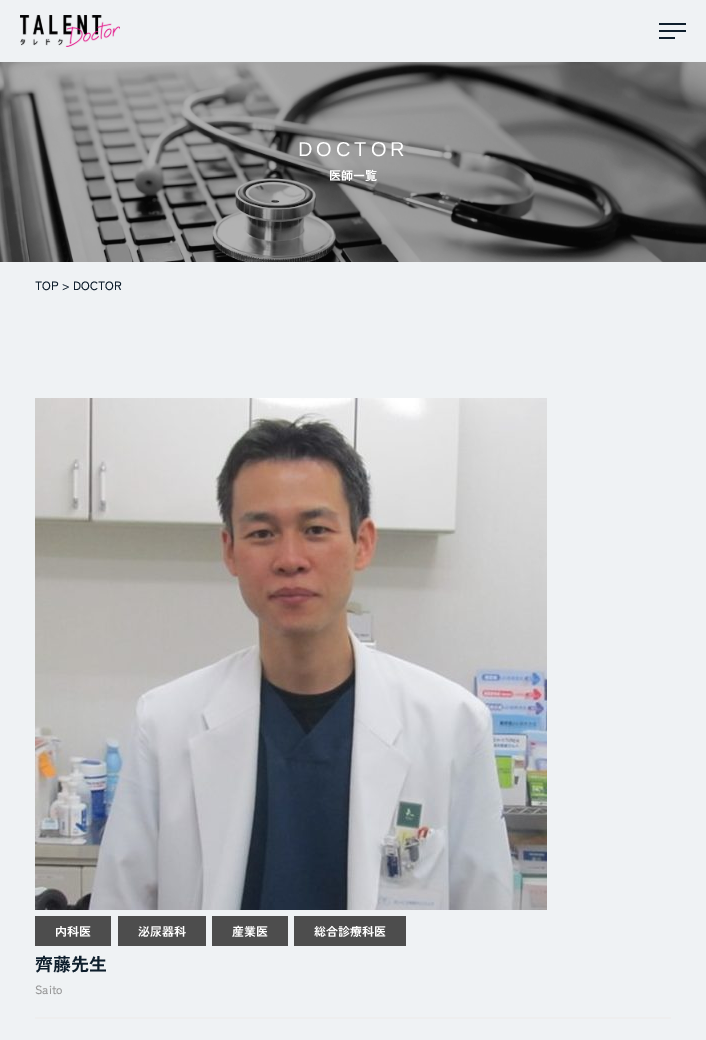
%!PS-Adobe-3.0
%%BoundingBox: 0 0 706 1040
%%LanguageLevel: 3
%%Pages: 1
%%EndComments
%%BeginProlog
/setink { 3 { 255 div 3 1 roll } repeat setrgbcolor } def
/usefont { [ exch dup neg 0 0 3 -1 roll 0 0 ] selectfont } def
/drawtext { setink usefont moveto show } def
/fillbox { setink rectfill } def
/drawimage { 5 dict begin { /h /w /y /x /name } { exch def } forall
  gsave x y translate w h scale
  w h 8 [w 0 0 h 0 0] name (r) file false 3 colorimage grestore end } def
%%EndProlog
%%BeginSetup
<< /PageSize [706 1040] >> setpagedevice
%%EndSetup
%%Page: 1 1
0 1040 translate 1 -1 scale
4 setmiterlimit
0 0 706 1040 239 242 244 fillbox
(assets/img1.rgb) 20 15 100 32 drawimage
659 23 27 2 14 30 44 fillbox
659 30 27 2 14 30 44 fillbox
659 37 16 2 14 30 44 fillbox
(assets/img2.rgb) 0 62 706 200 drawimage
/LiberationSans-Regular 20 usefont
255 255 255 setink
298 156 moveto 4 0 (DOCTOR) ashow
(医師一覧) 329 180 /ZenKakuGothicNew-Bold 12 255 255 255 drawtext
(TOP) 35 290 /ZenKakuGothicNew-Medium 12 14 30 44 drawtext
(>) 62 290 /ZenKakuGothicNew-Medium 12 14 30 44 drawtext
(DOCTOR) 73 290 /ZenKakuGothicNew-Medium 12 14 30 44 drawtext
(assets/img3.rgb) 35 398 512 512 drawimage
35 916 76 30 77 77 77 fillbox
(内科医) 55 936 /ZenKakuGothicNew-Bold 12 255 255 255 drawtext
118 916 88 30 77 77 77 fillbox
(泌尿器科) 138 936 /ZenKakuGothicNew-Bold 12 255 255 255 drawtext
212 916 76 30 77 77 77 fillbox
(産業医) 232 936 /ZenKakuGothicNew-Bold 12 255 255 255 drawtext
294 916 112 30 77 77 77 fillbox
(総合診療科医) 314 936 /ZenKakuGothicNew-Bold 12 255 255 255 drawtext
35 1017 636 2 238 238 238 fillbox
(齊藤先生) 35 971 /ZenKakuGothicNew-Bold 18 14 30 44 drawtext
(Saito) 35 994 /ZenKakuGothicNew-Medium 12 153 153 153 drawtext
showpage
%%EOF
